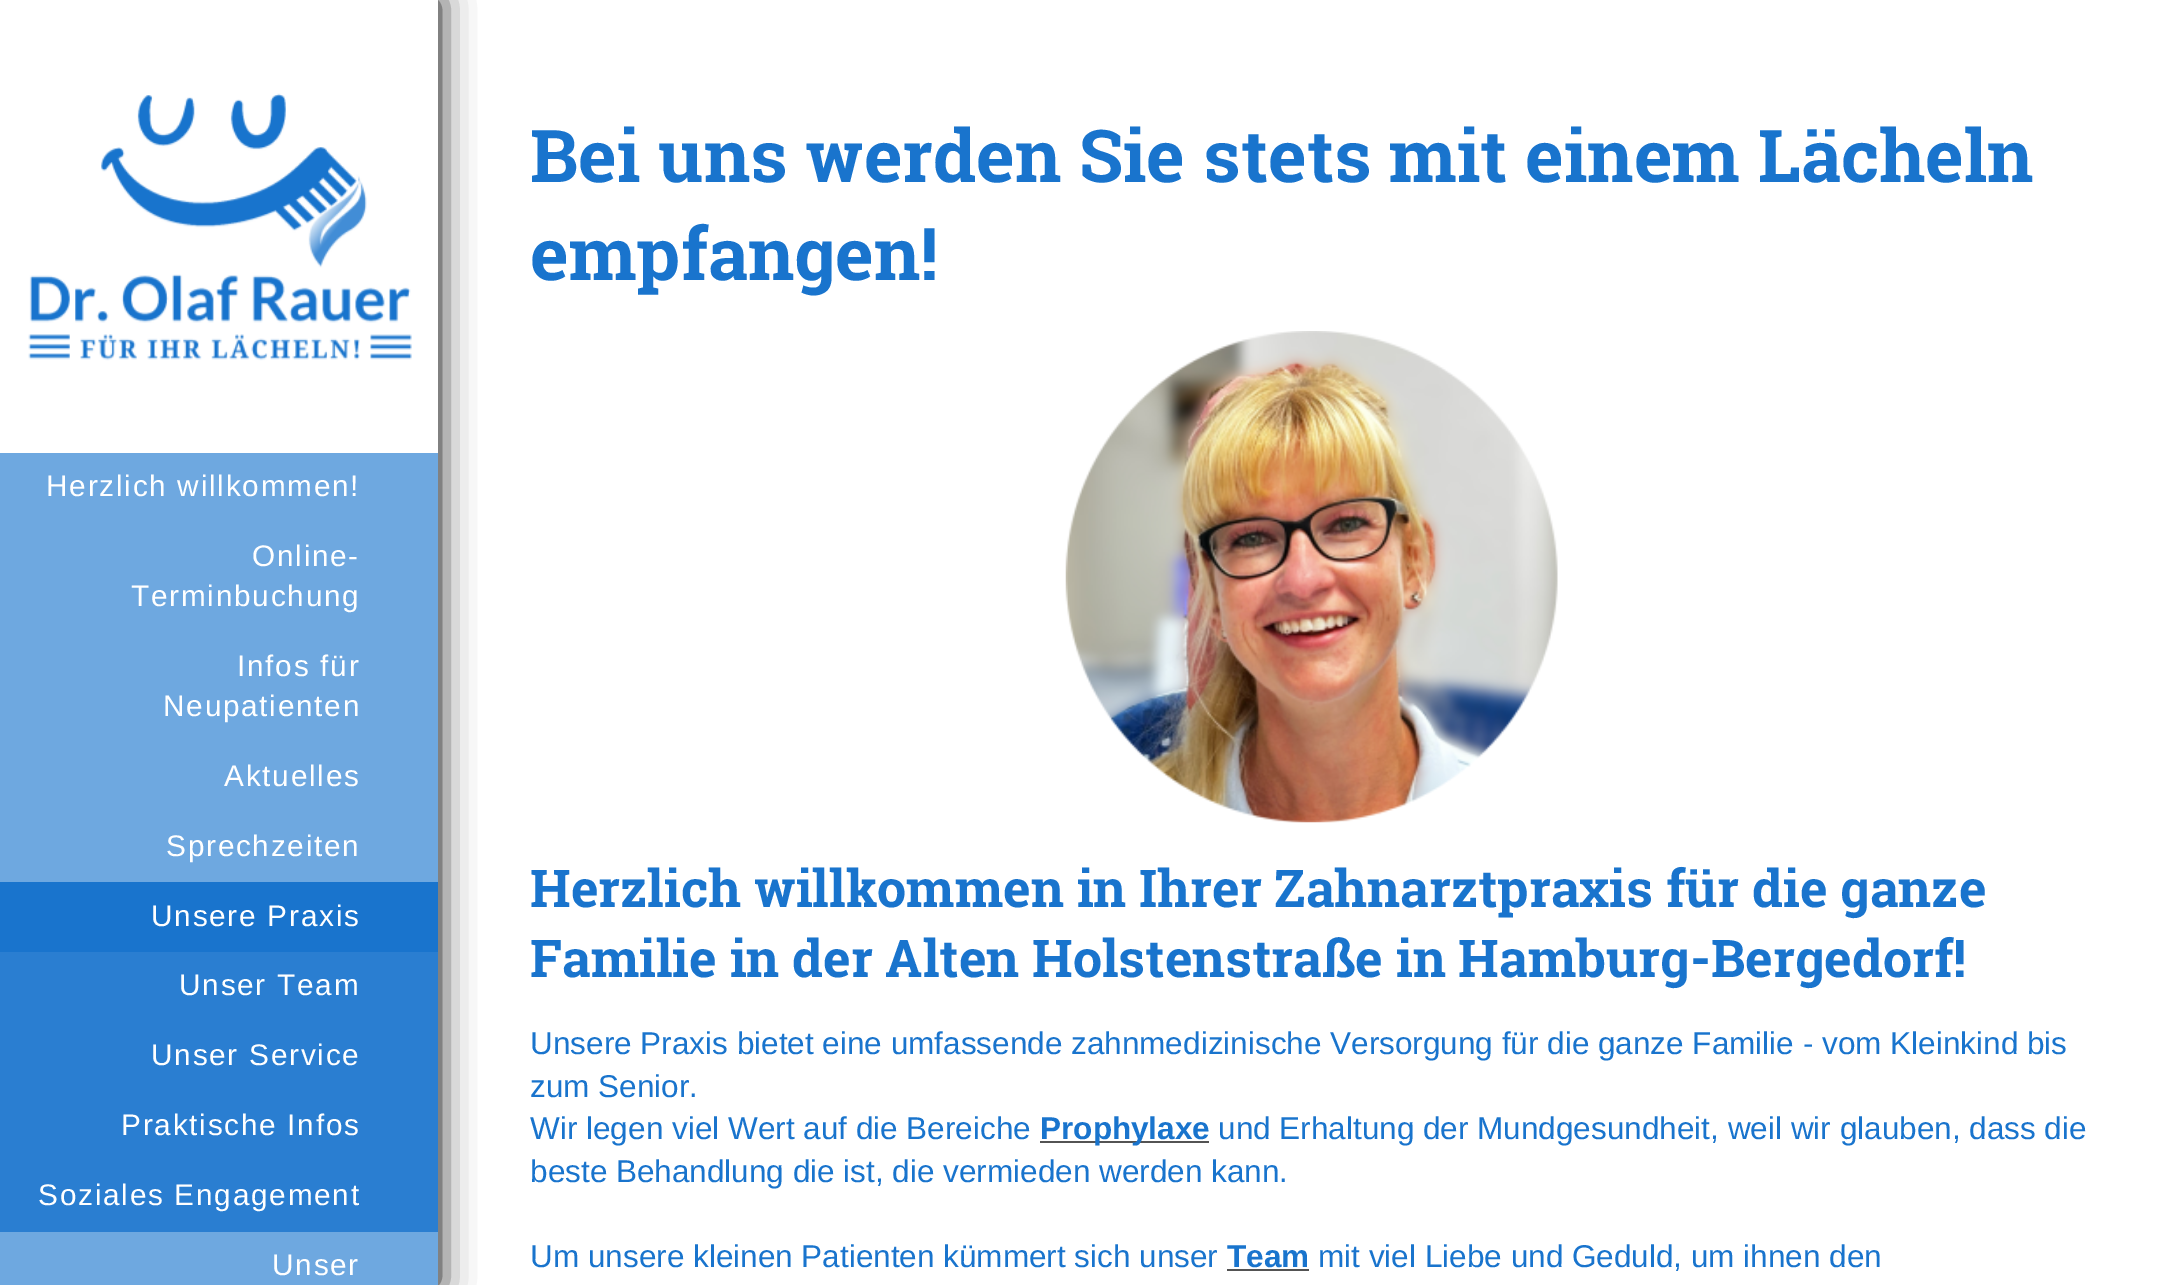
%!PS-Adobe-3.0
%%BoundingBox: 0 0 2183 1285
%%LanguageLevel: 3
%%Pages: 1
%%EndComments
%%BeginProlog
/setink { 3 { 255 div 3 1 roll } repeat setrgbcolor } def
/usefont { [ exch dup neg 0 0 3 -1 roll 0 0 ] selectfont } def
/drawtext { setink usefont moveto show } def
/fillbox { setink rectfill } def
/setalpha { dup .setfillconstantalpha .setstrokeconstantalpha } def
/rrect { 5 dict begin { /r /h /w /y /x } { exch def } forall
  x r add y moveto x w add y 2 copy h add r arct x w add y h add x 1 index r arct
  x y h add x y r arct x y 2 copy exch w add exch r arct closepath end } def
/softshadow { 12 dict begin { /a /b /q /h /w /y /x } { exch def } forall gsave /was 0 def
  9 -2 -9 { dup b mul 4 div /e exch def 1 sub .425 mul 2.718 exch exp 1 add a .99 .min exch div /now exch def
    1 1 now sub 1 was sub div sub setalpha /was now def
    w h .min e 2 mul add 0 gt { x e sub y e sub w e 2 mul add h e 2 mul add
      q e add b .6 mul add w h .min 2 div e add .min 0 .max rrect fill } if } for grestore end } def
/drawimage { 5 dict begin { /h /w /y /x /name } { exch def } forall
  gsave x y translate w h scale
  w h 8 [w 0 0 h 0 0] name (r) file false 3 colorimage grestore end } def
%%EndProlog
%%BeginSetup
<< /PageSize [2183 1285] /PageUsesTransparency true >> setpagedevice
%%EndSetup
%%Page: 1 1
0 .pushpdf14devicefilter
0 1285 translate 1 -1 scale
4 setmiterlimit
0 0 2183 1285 255 255 255 fillbox
0 0 0 setink
0 0 438 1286 0 17.5 1 softshadow
0 0 438 453 255 255 255 fillbox
(Bei uns werden Sie stets mit einem Lächeln) 530 182 /RobotoSlab-Bold 72.8 25 116 205 drawtext
(empfangen!) 530 280 /RobotoSlab-Bold 72.8 25 116 205 drawtext
(assets/img1.rgb) 1065 331 493 492 drawimage
(Herzlich willkommen in Ihrer Zahnarztpraxis für die ganze) 530 907 /RobotoSlab-Bold 52 25 116 205 drawtext
(Familie in der Alten Holstenstraße in Hamburg-Bergedorf!) 530 977 /RobotoSlab-Bold 52 25 116 205 drawtext
(Unsere Praxis bietet eine umfassende zahnmedizinische Versorgung für die ganze Familie - vom Kleinkind bis) 530 1054 /LiberationSans-Regular 31.5 25 116 205 drawtext
(zum Senior.) 530 1097 /LiberationSans-Regular 31.5 25 116 205 drawtext
(Wir legen viel Wert auf die Bereiche) 530 1139 /LiberationSans-Regular 31.5 25 116 205 drawtext
1040 1141 169 2 83 83 83 fillbox
(Prophylaxe) 1040 1139 /LiberationSans-Bold 31.5 25 116 205 drawtext
(und Erhaltung der Mundgesundheit, weil wir glauben, dass die) 1218 1139 /LiberationSans-Regular 31.5 25 116 205 drawtext
(beste Behandlung die ist, die vermieden werden kann.) 530 1182 /LiberationSans-Regular 31.5 25 116 205 drawtext
(Um unsere kleinen Patienten kümmert sich unser) 530 1267 /LiberationSans-Regular 31.5 25 116 205 drawtext
(Team) 1227 1267 /LiberationSans-Bold 31.5 25 116 205 drawtext
1227 1269 82 2 83 83 83 fillbox
(mit viel Liebe und Geduld, um ihnen den) 1318 1267 /LiberationSans-Regular 31.5 25 116 205 drawtext
(assets/img2.rgb) 28 93 384 268 drawimage
0 453 438 832 110 168 224 fillbox
/LiberationSans-Regular 29.75 usefont
255 255 255 setink
46 496 moveto 1.75 0 (Herzlich willkommen!) ashow
252 566 moveto 1.75 0 (Online-) ashow
131 606 moveto 1.75 0 (Terminbuchung) ashow
237 676 moveto 1.75 0 (Infos für) ashow
163 716 moveto 1.75 0 (Neupatienten) ashow
224 786 moveto 1.75 0 (Aktuelles) ashow
166 856 moveto 1.75 0 (Sprechzeiten) ashow
0 882 438 70 25 116 205 fillbox
255 255 255 setink
151 926 moveto 1.75 0 (Unsere Praxis) ashow
0 952 438 280 42 126 209 fillbox
255 255 255 setink
179 995 moveto 1.75 0 (Unser Team) ashow
151 1065 moveto 1.75 0 (Unser Service) ashow
121 1135 moveto 1.75 0 (Praktische Infos) ashow
38 1205 moveto 1.75 0 (Soziales Engagement) ashow
272 1275 moveto 1.75 0 (Unser) ashow
.poppdf14devicefilter showpage
%%EOF
